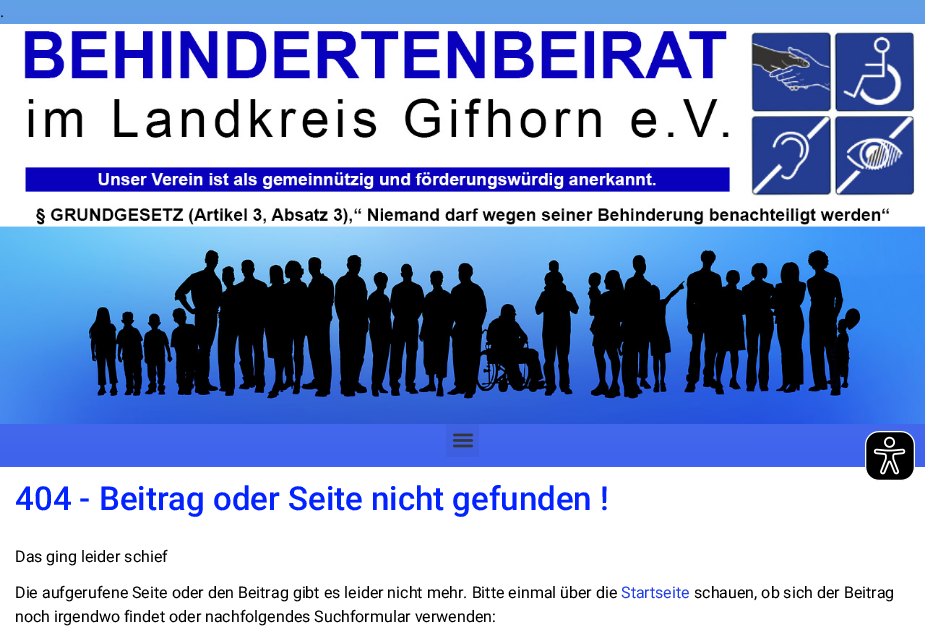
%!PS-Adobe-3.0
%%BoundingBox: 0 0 925 641
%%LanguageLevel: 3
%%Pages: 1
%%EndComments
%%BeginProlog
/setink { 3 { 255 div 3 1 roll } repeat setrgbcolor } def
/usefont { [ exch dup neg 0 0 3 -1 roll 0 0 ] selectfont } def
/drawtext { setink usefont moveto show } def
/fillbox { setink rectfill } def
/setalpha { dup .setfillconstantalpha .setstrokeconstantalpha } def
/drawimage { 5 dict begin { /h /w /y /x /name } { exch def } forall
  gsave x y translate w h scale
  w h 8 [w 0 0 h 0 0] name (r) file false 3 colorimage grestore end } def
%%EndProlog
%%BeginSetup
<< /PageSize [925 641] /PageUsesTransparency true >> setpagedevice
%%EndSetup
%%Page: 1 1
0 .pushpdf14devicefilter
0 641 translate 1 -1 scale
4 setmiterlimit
0 0 925 641 255 255 255 fillbox
gsave 0 0 moveto 925 0 lineto 925 467 lineto 0 467 lineto closepath clip newpath
<< /ShadingType 2 /ColorSpace /DeviceRGB /Coords [462 0 463 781] /Extend [true true] /Function << /FunctionType 2 /Domain [0 1] /C0 [0.388 0.631 0.902] /C1 [0.161 0.22 0.949] /N 1 >> >> shfill grestore
(.) 0 17 /Roboto-Regular 16 0 0 0 drawtext
(assets/img1.rgb) 0 24 925 400 drawimage
0.05 setalpha
446 424 33 33 0 0 0 fillbox
1 setalpha
(assets/img2.rgb) 452 433 21 15 drawimage
(assets/img3.rgb) 865 431 50 50 drawimage
(404 - Beitrag oder Seite nicht gefunden !) 15 510 /Roboto-Medium 33 2 34 255 drawtext
(Das ging leider schief) 15 562 /Roboto-Regular 16 0 0 0 drawtext
(Die aufgerufene Seite oder den Beitrag gibt es leider nicht mehr. Bitte einmal über die) 15 598 /Roboto-Regular 16 0 0 0 drawtext
(Startseite) 621 598 /Roboto-Regular 16 33 63 231 drawtext
(schauen, ob sich der Beitrag) 694 598 /Roboto-Regular 16 0 0 0 drawtext
(noch irgendwo findet oder nachfolgendes Suchformular verwenden:) 15 622 /Roboto-Regular 16 0 0 0 drawtext
.poppdf14devicefilter showpage
%%EOF
